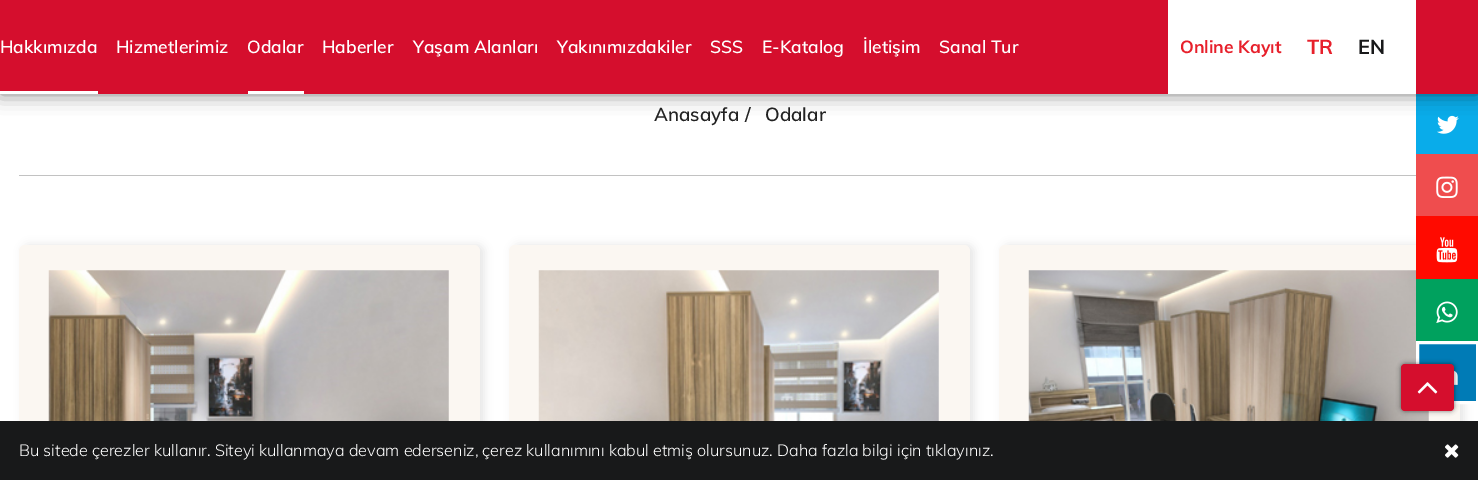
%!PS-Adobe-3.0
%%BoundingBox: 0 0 1478 480
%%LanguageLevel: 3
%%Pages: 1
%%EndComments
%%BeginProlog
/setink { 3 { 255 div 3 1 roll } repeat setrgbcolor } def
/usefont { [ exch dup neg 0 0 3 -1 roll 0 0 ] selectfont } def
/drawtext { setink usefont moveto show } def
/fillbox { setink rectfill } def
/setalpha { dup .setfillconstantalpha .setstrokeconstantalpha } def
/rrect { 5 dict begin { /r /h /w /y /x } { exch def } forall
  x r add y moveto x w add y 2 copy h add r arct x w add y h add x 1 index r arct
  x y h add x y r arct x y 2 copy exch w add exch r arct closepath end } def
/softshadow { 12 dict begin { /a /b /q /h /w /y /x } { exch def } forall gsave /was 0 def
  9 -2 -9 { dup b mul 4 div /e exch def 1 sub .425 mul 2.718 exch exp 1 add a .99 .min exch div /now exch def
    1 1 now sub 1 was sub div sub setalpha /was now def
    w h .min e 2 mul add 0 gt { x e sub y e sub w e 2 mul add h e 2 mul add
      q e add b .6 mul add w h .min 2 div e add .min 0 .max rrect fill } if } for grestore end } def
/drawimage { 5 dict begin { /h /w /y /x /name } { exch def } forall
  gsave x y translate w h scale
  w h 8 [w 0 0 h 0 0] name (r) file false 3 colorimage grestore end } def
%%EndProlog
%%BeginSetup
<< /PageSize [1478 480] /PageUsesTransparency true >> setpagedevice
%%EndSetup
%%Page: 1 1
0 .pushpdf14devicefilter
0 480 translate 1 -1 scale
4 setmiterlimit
0 0 1478 480 255 255 255 fillbox
1416 94 62 60 9 172 234 fillbox
(assets/img1.rgb) 1437 115 22 19 drawimage
0 0 0 setink
0 0 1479 94 0 9.5 0.5 softshadow
0 0 1478 94 213 14 45 fillbox
(Hakkımızda) 0 53 /Muli-SemiBold 17.5 255 255 255 drawtext
0 91 98 3 255 255 255 fillbox
(Hizmetlerimiz) 116 53 /Muli-SemiBold 17.5 255 255 255 drawtext
(Odalar) 247 53 /Muli-SemiBold 17.5 255 255 255 drawtext
248 91 56 3 255 255 255 fillbox
(Haberler) 322 53 /Muli-SemiBold 17.5 255 255 255 drawtext
(Yaşam Alanları) 413 53 /Muli-SemiBold 17.5 255 255 255 drawtext
(Yakınımızdakiler) 557 53 /Muli-SemiBold 17.5 255 255 255 drawtext
(SSS) 710 53 /Muli-SemiBold 17.5 255 255 255 drawtext
(E-Katalog) 762 53 /Muli-SemiBold 17.5 255 255 255 drawtext
(İletişim) 863 53 /Muli-SemiBold 17.5 255 255 255 drawtext
(Sanal Tur) 939 53 /Muli-SemiBold 17.5 255 255 255 drawtext
1168 0 248 94 255 255 255 fillbox
(Online Kayıt) 1180 53 /Muli-Bold 17.5 231 32 43 drawtext
(TR) 1307 54 /Muli-Bold 20 231 32 43 drawtext
(EN) 1358 54 /Muli-Bold 20 24 25 26 drawtext
19 175 1397 1 194 194 194 fillbox
(Anasayfa) 654 121 /Muli-SemiBold 18.75 34 34 34 drawtext
(/) 745 121 /Muli-SemiBold 18.75 34 34 34 drawtext
(Odalar) 765 121 /Muli-SemiBold 18.75 34 34 34 drawtext
1416 154 62 62 239 77 78 fillbox
(assets/img2.rgb) 1436 176 22 22 drawimage
176 176 176 setink
1003 245 461 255 6 4.5 0.3 softshadow
251 247 242 setink
999 245 461 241 6 rrect fill
(assets/img8.rgb) 1028 270 401 151 drawimage
1416 216 62 63 255 10 0 fillbox
(assets/img3.rgb) 1436 237 22 26 drawimage
1416 279 62 62 0 161 94 fillbox
(assets/img4.rgb) 1436 301 22 22 drawimage
0 123 182 setink
1417.5 342.5 moveto 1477.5 342.5 lineto 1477.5 402.5 lineto 1417.5 402.5 lineto closepath gsave fill grestore
255 255 255 setink
3 setlinewidth
stroke
(assets/img5.rgb) 1454 371 4 14 drawimage
176 176 176 setink
23 245 461 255 6 4.5 0.3 softshadow
251 247 242 setink
19 245 461 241 6 rrect fill
(assets/img6.rgb) 48 270 401 151 drawimage
176 176 176 setink
513 245 461 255 6 4.5 0.3 softshadow
251 247 242 setink
509 245 461 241 6 rrect fill
(assets/img7.rgb) 538 270 401 151 drawimage
0 0 0 setink
1401 364 53 47 4 2.5 0.52 softshadow
213 14 45 setink
1401 364 53 47 4 rrect fill
(assets/img9.rgb) 1417 382 21 12 drawimage
0 421 1478 59 24 25 26 fillbox
(Bu sitede çerezler kullanır. Siteyi kullanmaya devam ederseniz, çerez kullanımını kabul etmiş olursunuz. Daha fazla bilgi için tıklayınız.) 19 456 /Muli-Light 16.25 255 255 255 drawtext
(assets/img10.rgb) 1445 444 14 14 drawimage
.poppdf14devicefilter showpage
%%EOF
